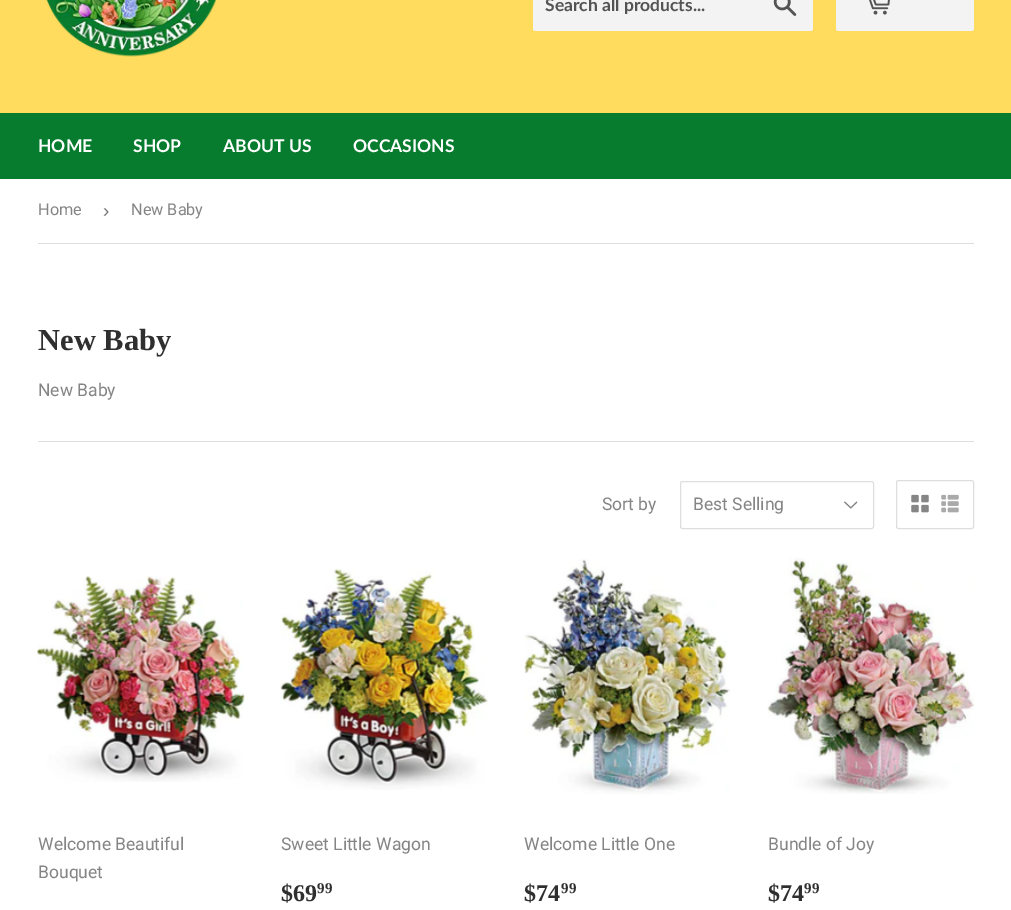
%!PS-Adobe-3.0
%%BoundingBox: 0 0 1011 910
%%LanguageLevel: 3
%%Pages: 1
%%EndComments
%%BeginProlog
/setink { 3 { 255 div 3 1 roll } repeat setrgbcolor } def
/usefont { [ exch dup neg 0 0 3 -1 roll 0 0 ] selectfont } def
/drawtext { setink usefont moveto show } def
/fillbox { setink rectfill } def
/rrect { 5 dict begin { /r /h /w /y /x } { exch def } forall
  x r add y moveto x w add y 2 copy h add r arct x w add y h add x 1 index r arct
  x y h add x y r arct x y 2 copy exch w add exch r arct closepath end } def
/drawimage { 5 dict begin { /h /w /y /x /name } { exch def } forall
  gsave x y translate w h scale
  w h 8 [w 0 0 h 0 0] name (r) file false 3 colorimage grestore end } def
%%EndProlog
%%BeginSetup
<< /PageSize [1011 910] >> setpagedevice
%%EndSetup
%%Page: 1 1
0 910 translate 1 -1 scale
4 setmiterlimit
0 0 1011 910 255 255 255 fillbox
0 0 1011 113 255 219 94 fillbox
(assets/img1.rgb) 46 0 171 57 drawimage
243 243 243 setink
533 -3 280 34 2.5 rrect fill
(Search all products...) 545 11 /Lato-Bold 17.5 84 84 84 drawtext
(assets/img2.rgb) 773 0 24 16 drawimage
243 243 243 setink
836 -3 138 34 2.5 rrect fill
(assets/img3.rgb) 869 0 21 15 drawimage
0 113 1011 66 8 124 46 fillbox
(HOME) 38 152 /Lato-Bold 17.5 255 255 255 drawtext
(SHOP) 133 152 /Lato-Bold 17.5 255 255 255 drawtext
(ABOUT US) 223 152 /Lato-Bold 17.5 255 255 255 drawtext
(OCCASIONS) 353 152 /Lato-Bold 17.5 255 255 255 drawtext
38 243 936 1 222 222 222 fillbox
(Home) 38 215 /Roboto-Regular 16.25 133 133 133 drawtext
(›) 103 217 /LiberationSans-Regular 19 118 118 118 drawtext
(New Baby) 131 215 /Roboto-Regular 16.25 133 133 133 drawtext
(New Baby) 38 350 /LiberationSerif-Bold 30.5 47 47 47 drawtext
(New Baby) 38 396 /Roboto-Regular 17.5 133 133 133 drawtext
38 441 936 1 222 222 222 fillbox
(Sort by) 602 510 /Roboto-Regular 17.5 133 133 133 drawtext
(assets/img4.rgb) 844 501 14 8 drawimage
222 222 222 setink
680.5 481.5 193 47 2 rrect stroke
(Best Selling) 693 510 /Roboto-Regular 17.5 133 133 133 drawtext
222 222 222 setink
896.5 480.5 77 48 2 rrect stroke
(assets/img5.rgb) 911 494 18 19 drawimage
(assets/img6.rgb) 941 494 18 19 drawimage
(assets/img7.rgb) 37 575 208 207 drawimage
(Welcome Beautiful) 38 850 /Roboto-Regular 17.5 133 133 133 drawtext
(Bouquet) 38 878 /Roboto-Regular 17.5 133 133 133 drawtext
(assets/img8.rgb) 280 568 208 222 drawimage
(Sweet Little Wagon) 281 850 /Roboto-Regular 17.5 133 133 133 drawtext
($69) 281 901 /LiberationSerif-Bold 24 47 47 47 drawtext
(99) 317 893 /LiberationSerif-Bold 15 47 47 47 drawtext
(assets/img9.rgb) 524 559 207 236 drawimage
(Welcome Little One) 524 850 /Roboto-Regular 17.5 133 133 133 drawtext
($74) 524 901 /LiberationSerif-Bold 24 47 47 47 drawtext
(99) 561 893 /LiberationSerif-Bold 15 47 47 47 drawtext
(assets/img10.rgb) 767 558 207 236 drawimage
(Bundle of Joy) 768 850 /Roboto-Regular 17.5 133 133 133 drawtext
($74) 768 901 /LiberationSerif-Bold 24 47 47 47 drawtext
(99) 804 893 /LiberationSerif-Bold 15 47 47 47 drawtext
showpage
%%EOF
